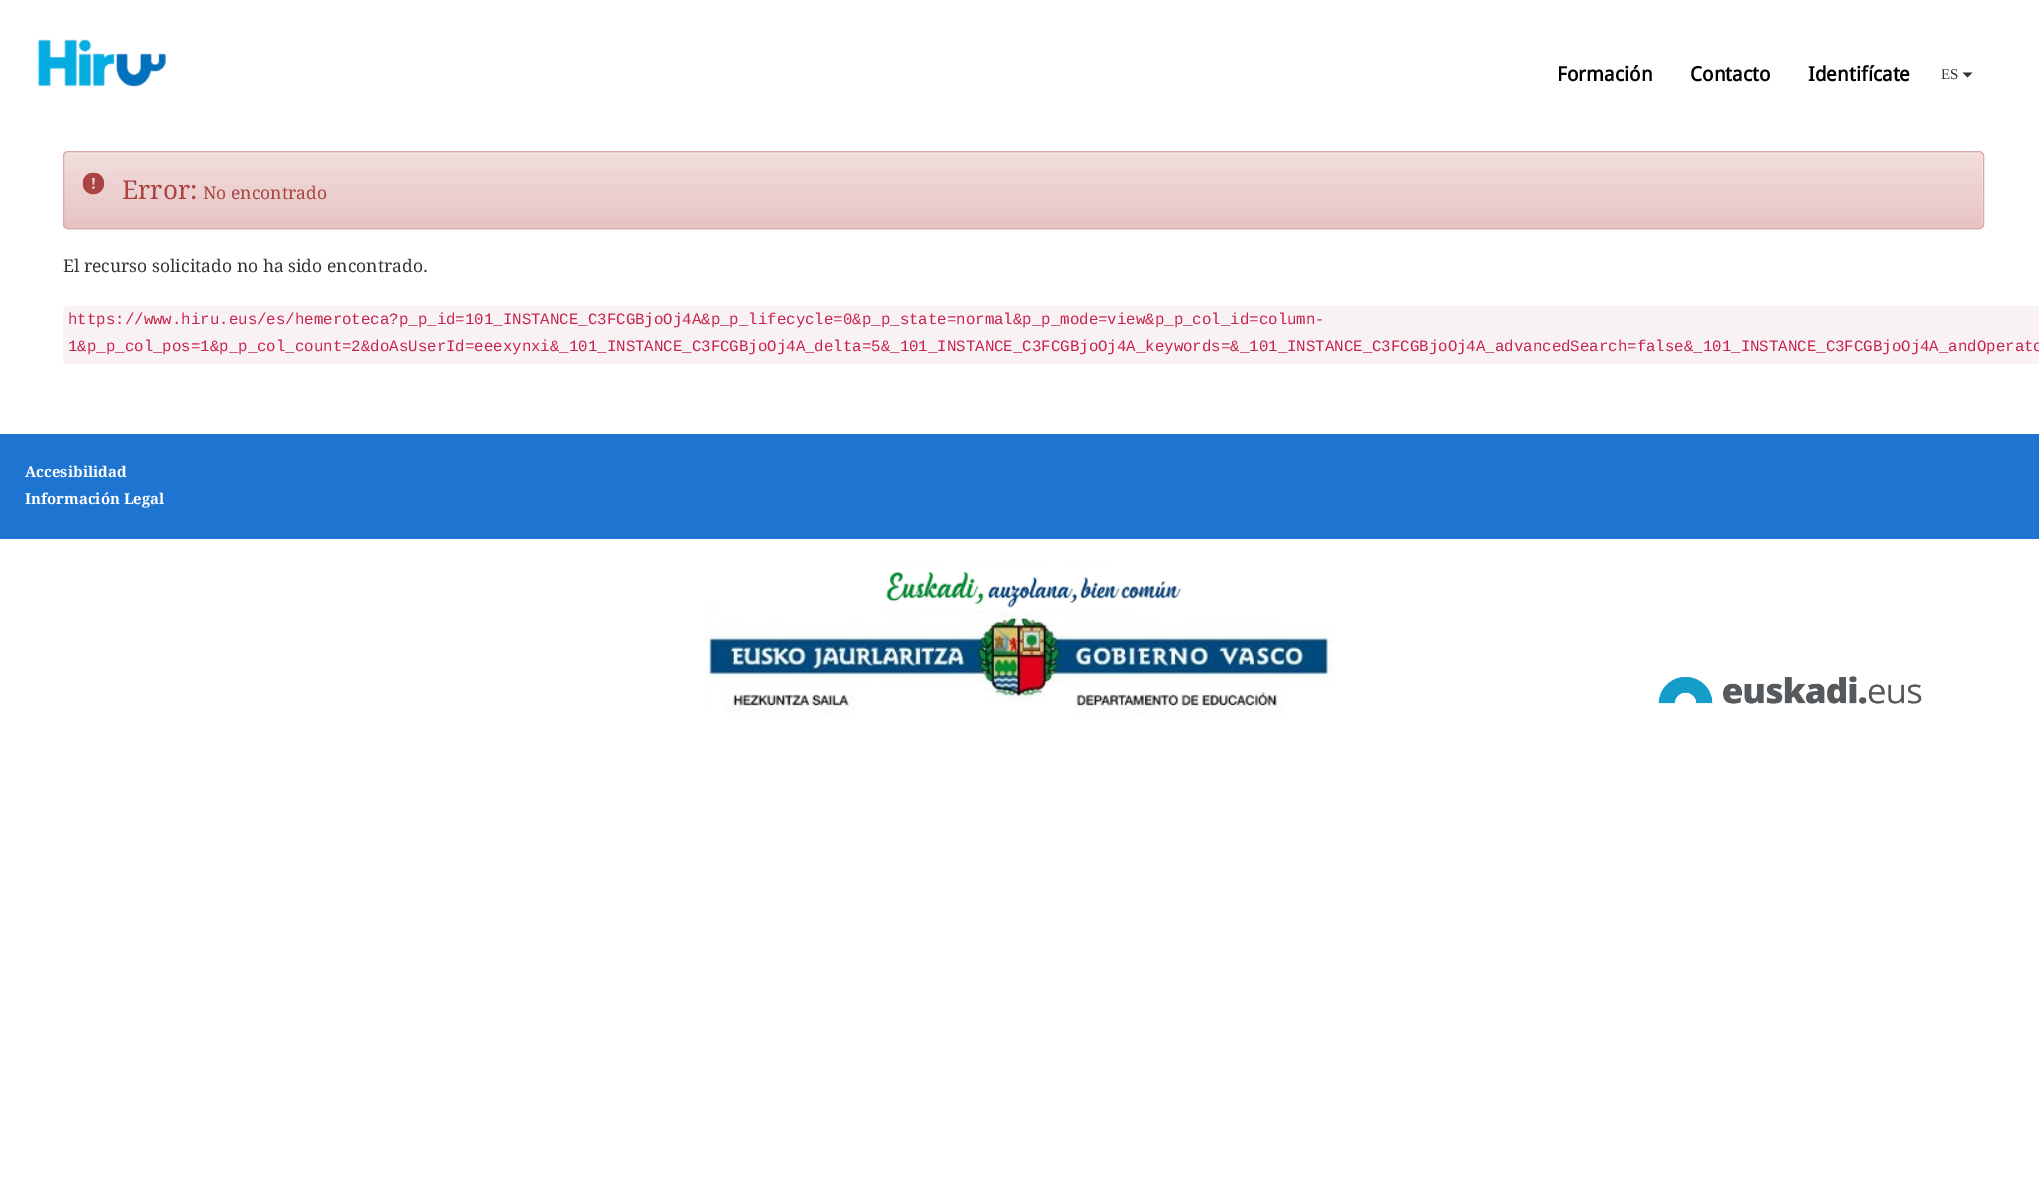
%!PS-Adobe-3.0
%%BoundingBox: 0 0 2039 1190
%%LanguageLevel: 3
%%Pages: 1
%%EndComments
%%BeginProlog
/setink { 3 { 255 div 3 1 roll } repeat setrgbcolor } def
/usefont { [ exch dup neg 0 0 3 -1 roll 0 0 ] selectfont } def
/drawtext { setink usefont moveto show } def
/fillbox { setink rectfill } def
/setalpha { dup .setfillconstantalpha .setstrokeconstantalpha } def
/rrect { 5 dict begin { /r /h /w /y /x } { exch def } forall
  x r add y moveto x w add y 2 copy h add r arct x w add y h add x 1 index r arct
  x y h add x y r arct x y 2 copy exch w add exch r arct closepath end } def
/softshadow { 12 dict begin { /a /b /q /h /w /y /x } { exch def } forall gsave /was 0 def
  9 -2 -9 { dup b mul 4 div /e exch def 1 sub .425 mul 2.718 exch exp 1 add a .99 .min exch div /now exch def
    1 1 now sub 1 was sub div sub setalpha /was now def
    w h .min e 2 mul add 0 gt { x e sub y e sub w e 2 mul add h e 2 mul add
      q e add b .6 mul add w h .min 2 div e add .min 0 .max rrect fill } if } for grestore end } def
/drawimage { 5 dict begin { /h /w /y /x /name } { exch def } forall
  gsave x y translate w h scale
  w h 8 [w 0 0 h 0 0] name (r) file false 3 colorimage grestore end } def
%%EndProlog
%%BeginSetup
<< /PageSize [2039 1190] /PageUsesTransparency true >> setpagedevice
%%EndSetup
%%Page: 1 1
0 .pushpdf14devicefilter
0 1190 translate 1 -1 scale
4 setmiterlimit
0 0 2039 1190 255 255 255 fillbox
(assets/img1.rgb) 37 39 129 48 drawimage
(Formación) 1557 81 /DroidSans-Bold 20 0 0 0 drawtext
(Contacto) 1690 81 /DroidSans-Bold 20 0 0 0 drawtext
(Identifícate) 1808 81 /DroidSans-Bold 20 0 0 0 drawtext
(ES) 1941 79 /LiberationSerif-Regular 15 51 51 51 drawtext
1962.5 72.5 moveto 1972.5 72.5 lineto 1967.5 77.5 lineto closepath fill
0 0 0 setink
63 153 1921 77 5 1 0.05 softshadow
242 222 222 setink
63 151 1921 78 5 rrect fill
gsave
63 151 1921 78 5 rrect clip newpath
gsave 63 153 moveto 1984 153 lineto 1984 228 lineto 63 228 lineto closepath clip newpath
<< /ShadingType 2 /ColorSpace /DeviceRGB /Coords [1023 152 1023 228] /Extend [true true] /Function << /FunctionType 2 /Domain [0 1] /C0 [0.949 0.871 0.871] /C1 [0.906 0.765 0.765] /N 1 >> >> shfill grestore
grestore
0.25 setalpha
255 255 255 setink
68 154 moveto 1979 154 lineto 1981 154 1982 155 1982 158 curveto 1982 225 lineto 1982 227 lineto 1982 226 1983 225 1983 224 curveto 1983 157 lineto 1983 155 1981 153 1979 153 curveto 68 153 lineto 66 153 64 155 64 157 curveto 64 158 lineto 64 155 65 154 68 154 curveto closepath fill
1 setalpha
220 167 167 setink
63.5 151.5 1920 77 4.5 rrect stroke
(assets/img2.rgb) 82 172 23 23 drawimage
(Error:) 122 199 /DroidSerif-Regular 26 169 68 66 drawtext
(No encontrado) 203 199 /DroidSerif-Regular 17.5 169 68 66 drawtext
(El recurso solicitado no ha sido encontrado.) 63 272 /DroidSerif-Regular 17.5 51 51 51 drawtext
249 242 244 setink
63 306 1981 58 5 rrect fill
(https://www.hiru.eus/es/hemeroteca?p_p_id=101_INSTANCE_C3FCGBjoOj4A&p_p_lifecycle=0&p_p_state=normal&p_p_mode=view&p_p_col_id=column-) 68 324 /LiberationMono-Regular 15.75 199 37 78 drawtext
(1&p_p_col_pos=1&p_p_col_count=2&doAsUserId=eeexynxi&_101_INSTANCE_C3FCGBjoOj4A_delta=5&_101_INSTANCE_C3FCGBjoOj4A_keywords=&_101_INSTANCE_C3FCGBjoOj4A_advancedSearch=false&_101_INSTANCE_C3FCGBjoOj4A_andOperato) 68 351 /LiberationMono-Regular 15.75 199 37 78 drawtext
0 434 2039 105 30 116 209 fillbox
(Accesibilidad) 25 477 /DroidSerif-Bold 14.9 255 255 255 drawtext
(Información Legal) 25 504 /DroidSerif-Bold 14.9 255 255 255 drawtext
(assets/img3.rgb) 706 564 630 150 drawimage
(assets/img4.rgb) 1658 676 264 28 drawimage
.poppdf14devicefilter showpage
%%EOF
